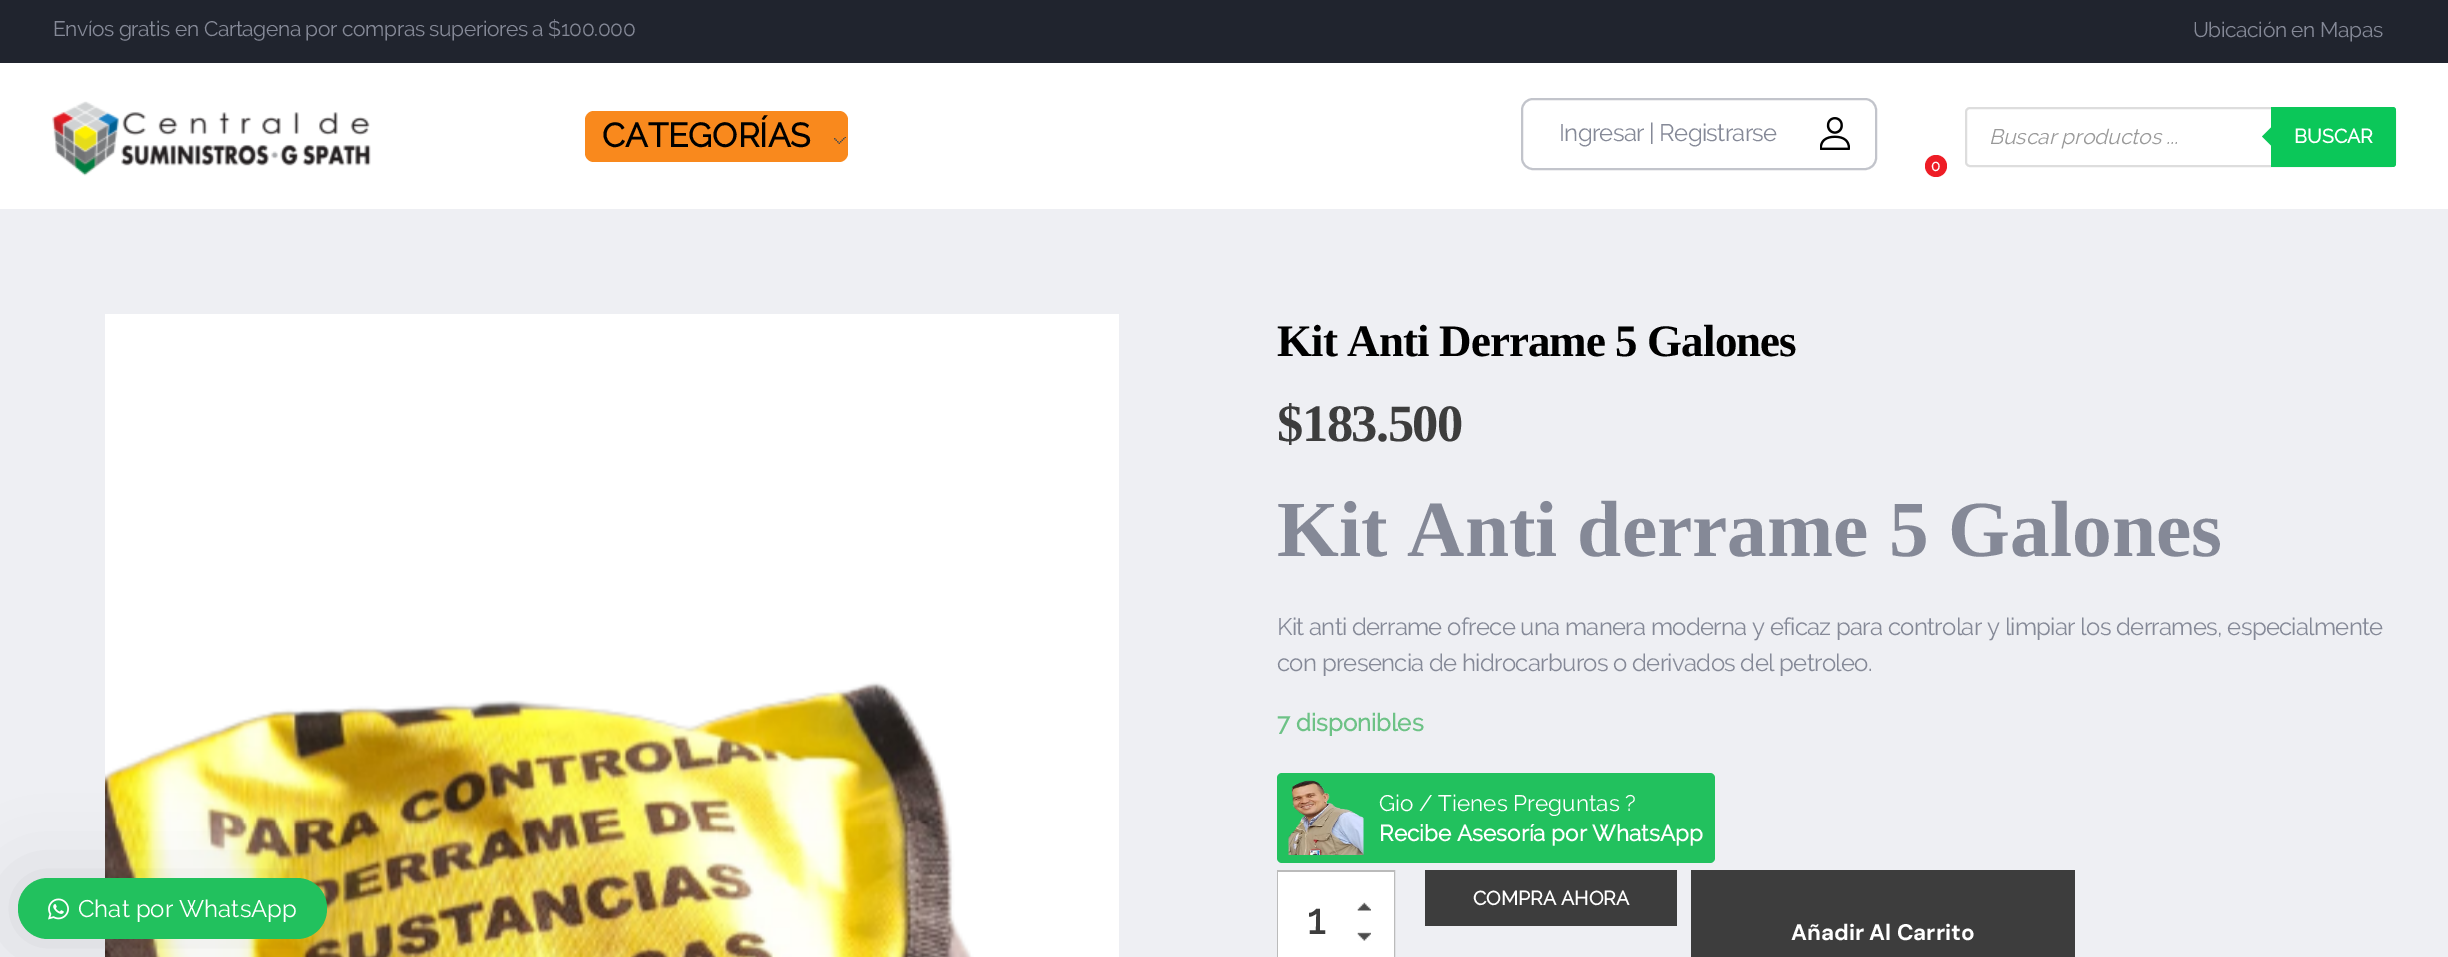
%!PS-Adobe-3.0
%%BoundingBox: 0 0 2448 957
%%LanguageLevel: 3
%%Pages: 1
%%EndComments
%%BeginProlog
/setink { 3 { 255 div 3 1 roll } repeat setrgbcolor } def
/usefont { [ exch dup neg 0 0 3 -1 roll 0 0 ] selectfont } def
/drawtext { setink usefont moveto show } def
/fillbox { setink rectfill } def
/setalpha { dup .setfillconstantalpha .setstrokeconstantalpha } def
/disc { newpath 0 360 arc closepath } def
/rrect { 5 dict begin { /r /h /w /y /x } { exch def } forall
  x r add y moveto x w add y 2 copy h add r arct x w add y h add x 1 index r arct
  x y h add x y r arct x y 2 copy exch w add exch r arct closepath end } def
/softshadow { 12 dict begin { /a /b /q /h /w /y /x } { exch def } forall gsave /was 0 def
  9 -2 -9 { dup b mul 4 div /e exch def 1 sub .425 mul 2.718 exch exp 1 add a .99 .min exch div /now exch def
    1 1 now sub 1 was sub div sub setalpha /was now def
    w h .min e 2 mul add 0 gt { x e sub y e sub w e 2 mul add h e 2 mul add
      q e add b .6 mul add w h .min 2 div e add .min 0 .max rrect fill } if } for grestore end } def
/drawimage { 5 dict begin { /h /w /y /x /name } { exch def } forall
  gsave x y translate w h scale
  w h 8 [w 0 0 h 0 0] name (r) file false 3 colorimage grestore end } def
%%EndProlog
%%BeginSetup
<< /PageSize [2448 957] /PageUsesTransparency true >> setpagedevice
%%EndSetup
%%Page: 1 1
0 .pushpdf14devicefilter
0 957 translate 1 -1 scale
4 setmiterlimit
0 0 2448 957 238 239 243 fillbox
0 0 2448 63 32 36 46 fillbox
/Raleway-Regular 21 usefont
133 137 151 setink
53 36 moveto -0.42 0 (Envíos gratis en Cartagena por compras superiores a $100.000) ashow
2193 37 moveto -0.42 0 (Ubicación en Mapas) ashow
0 63 2448 146 255 255 255 fillbox
(assets/img1.rgb) 52 101 319 75 drawimage
249 137 29 setink
585 111 263 51 9 rrect fill
(CATEGORÍAS) 602 147 /Raleway-Bold 33.5 0 0 0 drawtext
(assets/img2.rgb) 834 137 12 7 drawimage
194 196 203 setink
2 setlinewidth
1522 99 354 70 11 rrect stroke
/Raleway-Regular 24 usefont
133 137 151 setink
1559 141 moveto -0.72 0 (Ingresar | Registrarse) ashow
(assets/img3.rgb) 1820 117 30 33 drawimage
238 29 38 setink
1936 166 11 disc fill
(0) 1931 171 /Raleway-Bold 15 255 255 255 drawtext
221 221 221 setink
1966 108 429 58 4 rrect stroke
(Buscar productos ...) 1989 144 /Raleway-Italic 21 153 153 153 drawtext
11 199 89 setink
2271 107 moveto 2393 107 lineto 2394.5 107 2396 108.5 2396 110 curveto 2396 164 lineto 2396 165.5 2394.5 167 2393 167 curveto 2271 167 lineto closepath fill
2274 124.5 moveto 2274 148.5 lineto 2262 136.5 lineto closepath fill
(BUSCAR) 2294 143 /Raleway-Bold 19.5 255 255 255 drawtext
(assets/img4.rgb) 105 314 1014 643 drawimage
/LiberationSerif-Bold 45 usefont
0 0 0 setink
1277 356 moveto -0.9 0 (Kit Anti Derrame 5 Galones) ashow
/LiberationSerif-Bold 52.5 usefont
61 61 61 setink
1277 441 moveto -1.5 0 ($183.500) ashow
(Kit Anti derrame 5 Galones) 1277 556 /LiberationSerif-Bold 79.5 133 137 151 drawtext
/Raleway-Regular 24 usefont
1277 635 moveto -0.72 0 (Kit anti derrame ofrece una manera moderna y eficaz para controlar y limpiar los derrames, especialmente) ashow
1277 671 moveto -0.72 0 (con presencia de hidrocarburos o derivados del petroleo.) ashow
(7 disponibles) 1277 731 /Raleway-Bold 24 109 194 134 drawtext
34 193 94 setink
1277 773 438 90 5 rrect fill
(assets/img5.rgb) 1288 780 76 75 drawimage
(Gio / Tienes Preguntas ?) 1379 811 /Raleway-Regular 22.5 255 255 255 drawtext
(Recibe Asesoría por WhatsApp) 1379 841 /Raleway-Bold 22.5 255 255 255 drawtext
1425 870 252 56 61 61 61 fillbox
(COMPRA AHORA) 1473 905 /Raleway-Bold 19.5 255 255 255 drawtext
187 187 187 setink
1278 871 116 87 rectstroke
1278 872 116 85 255 255 255 fillbox
(assets/img6.rgb) 1357 902 14 9 drawimage
(1) 1307 934 /Raleway-Bold 42 61 61 61 drawtext
(assets/img7.rgb) 1357 932 14 9 drawimage
1691 870 384 87 61 61 61 fillbox
(Añadir Al Carrito) 1791 940 /DMSans-Bold 22.5 255 255 255 drawtext
0 0 0 setink
18 878 309 61 30 37.5 0.1 softshadow
34 193 94 setink
18 878 309 61 30 rrect fill
(assets/img8.rgb) 48 898 21 22 drawimage
(Chat por WhatsApp) 78 917 /Raleway-Regular 24 255 255 255 drawtext
.poppdf14devicefilter showpage
%%EOF
